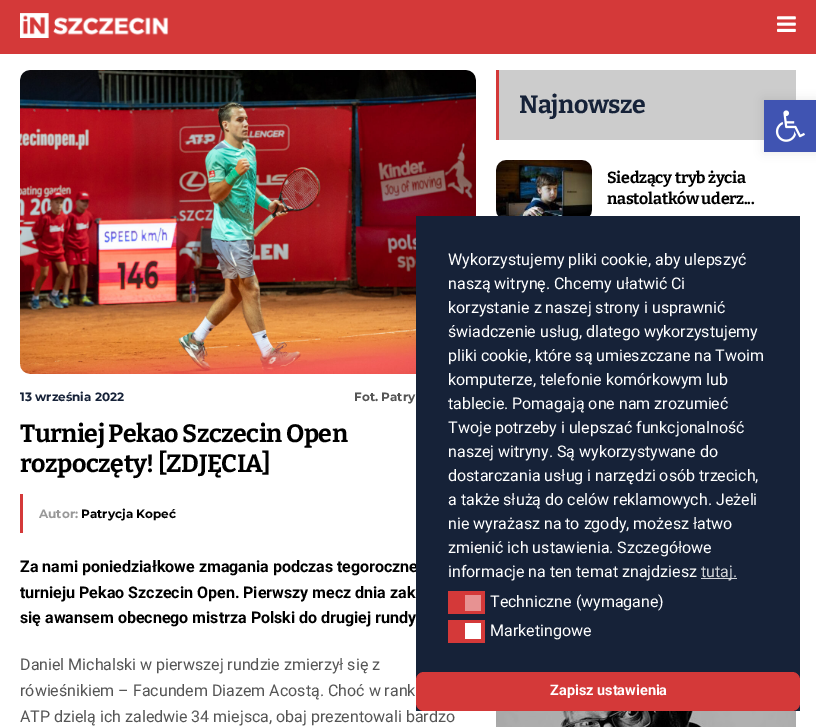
%!PS-Adobe-3.0
%%BoundingBox: 0 0 816 727
%%LanguageLevel: 3
%%Pages: 1
%%EndComments
%%BeginProlog
/setink { 3 { 255 div 3 1 roll } repeat setrgbcolor } def
/usefont { [ exch dup neg 0 0 3 -1 roll 0 0 ] selectfont } def
/drawtext { setink usefont moveto show } def
/fillbox { setink rectfill } def
/setalpha { dup .setfillconstantalpha .setstrokeconstantalpha } def
/rrect { 5 dict begin { /r /h /w /y /x } { exch def } forall
  x r add y moveto x w add y 2 copy h add r arct x w add y h add x 1 index r arct
  x y h add x y r arct x y 2 copy exch w add exch r arct closepath end } def
/softshadow { 12 dict begin { /a /b /q /h /w /y /x } { exch def } forall gsave /was 0 def
  9 -2 -9 { dup b mul 4 div /e exch def 1 sub .425 mul 2.718 exch exp 1 add a .99 .min exch div /now exch def
    1 1 now sub 1 was sub div sub setalpha /was now def
    w h .min e 2 mul add 0 gt { x e sub y e sub w e 2 mul add h e 2 mul add
      q e add b .6 mul add w h .min 2 div e add .min 0 .max rrect fill } if } for grestore end } def
/drawimage { 5 dict begin { /h /w /y /x /name } { exch def } forall
  gsave x y translate w h scale
  w h 8 [w 0 0 h 0 0] name (r) file false 3 colorimage grestore end } def
%%EndProlog
%%BeginSetup
<< /PageSize [816 727] /PageUsesTransparency true >> setpagedevice
%%EndSetup
%%Page: 1 1
0 .pushpdf14devicefilter
0 727 translate 1 -1 scale
4 setmiterlimit
0 0 816 727 255 255 255 fillbox
0 0 816 54 212 57 57 fillbox
(assets/img1.rgb) 20 13 149 25 drawimage
(assets/img2.rgb) 777 16 19 16 drawimage
499 70 297 70 204 204 204 fillbox
496 70 3 70 212 57 57 fillbox
/Bitter-Bold 25 usefont
22 34 56 setink
519 113 moveto -0.5 0 (Najnowsze) ashow
(assets/img3.rgb) 496 160 96 56 drawimage
/Bitter-Bold 16 usefont
0 0 0 setink
607 183 moveto -0.3 0 (Siedzący tryb życia) ashow
607 204 moveto -0.3 0 (nastolatków uderz...) ashow
(assets/img4.rgb) 496 711 300 16 drawimage
(assets/img5.rgb) 20 70 456 304 drawimage
(13 września 2022) 20 401 /Montserrat-Bold 12 22 34 56 drawtext
(Fot. Patry) 354 401 /Montserrat-Bold 12 85 85 85 drawtext
/Bitter-Bold 25 usefont
0 0 0 setink
20 442 moveto -0.5 0 (Turniej Pekao Szczecin Open) ashow
20 472 moveto -0.5 0 (rozpoczęty! [ZDJĘCIA]) ashow
20 494 3 39 212 57 57 fillbox
(Autor:) 39 518 /Montserrat-Bold 12 153 153 153 drawtext
(Patrycja Kopeć) 81 518 /Montserrat-Bold 12 0 0 0 drawtext
(Za nami poniedziałkowe zmagania podczas tegoroczne) 20 572 /Roboto-Bold 16 0 0 0 drawtext
(turnieju Pekao Szczecin Open. Pierwszy mecz dnia zak) 20 598 /Roboto-Bold 16 0 0 0 drawtext
(się awansem obecnego mistrza Polski do drugiej rundy) 20 623 /Roboto-Bold 16 0 0 0 drawtext
(Daniel Michalski w pierwszej rundzie zmierzył się z) 20 670 /Roboto-Regular 16 85 85 85 drawtext
(rówieśnikiem – Facundem Diazem Acostą. Choć w rank) 20 696 /Roboto-Regular 16 85 85 85 drawtext
(ATP dzielą ich zaledwie 34 miejsca, obaj prezentowali bardzo) 20 722 /Roboto-Regular 16 85 85 85 drawtext
0 0 0 setink
764 100 52 52 0 5 0.1 softshadow
764 100 52 52 64 84 178 fillbox
(assets/img6.rgb) 775 110 30 32 drawimage
416 216 384 495 22 34 56 fillbox
(Wykorzystujemy pliki cookie, aby ulepszyć) 448 265 /Roboto-Regular 16 255 255 255 drawtext
(naszą witrynę. Chcemy ułatwić Ci) 448 289 /Roboto-Regular 16 255 255 255 drawtext
(korzystanie z naszej strony i usprawnić) 448 313 /Roboto-Regular 16 255 255 255 drawtext
(świadczenie usług, dlatego wykorzystujemy) 448 337 /Roboto-Regular 16 255 255 255 drawtext
(pliki cookie, które są umieszczane na Twoim) 448 361 /Roboto-Regular 16 255 255 255 drawtext
(komputerze, telefonie komórkowym lub) 448 385 /Roboto-Regular 16 255 255 255 drawtext
(tablecie. Pomagają one nam zrozumieć) 448 409 /Roboto-Regular 16 255 255 255 drawtext
(Twoje potrzeby i ulepszać funkcjonalność) 448 433 /Roboto-Regular 16 255 255 255 drawtext
(naszej witryny. Są wykorzystywane do) 448 457 /Roboto-Regular 16 255 255 255 drawtext
(dostarczania usług i narzędzi osób trzecich,) 448 481 /Roboto-Regular 16 255 255 255 drawtext
(a także służą do celów reklamowych. Jeżeli) 448 505 /Roboto-Regular 16 255 255 255 drawtext
(nie wyrażasz na to zgody, możesz łatwo) 448 529 /Roboto-Regular 16 255 255 255 drawtext
(zmienić ich ustawienia. Szczegółowe) 448 553 /Roboto-Regular 16 255 255 255 drawtext
(informacje na ten temat znajdziesz) 448 577 /Roboto-Regular 16 255 255 255 drawtext
701 578 36 1 208 211 215 fillbox
(tutaj.) 701 577 /Roboto-Regular 16 208 211 215 drawtext
448 591 37 23 212 57 57 fillbox
465 595 16 16 231 146 146 fillbox
(Techniczne \(wymagane\)) 490 607 /Roboto-Regular 16 255 255 255 drawtext
448 620 37 23 212 57 57 fillbox
465 623 16 16 255 255 255 fillbox
(Marketingowe) 490 636 /Roboto-Regular 16 255 255 255 drawtext
212 57 57 setink
416 672 384 39 8 rrect fill
(Zapisz ustawienia) 550 695 /Roboto-Bold 14.5 255 255 255 drawtext
.poppdf14devicefilter showpage
%%EOF
